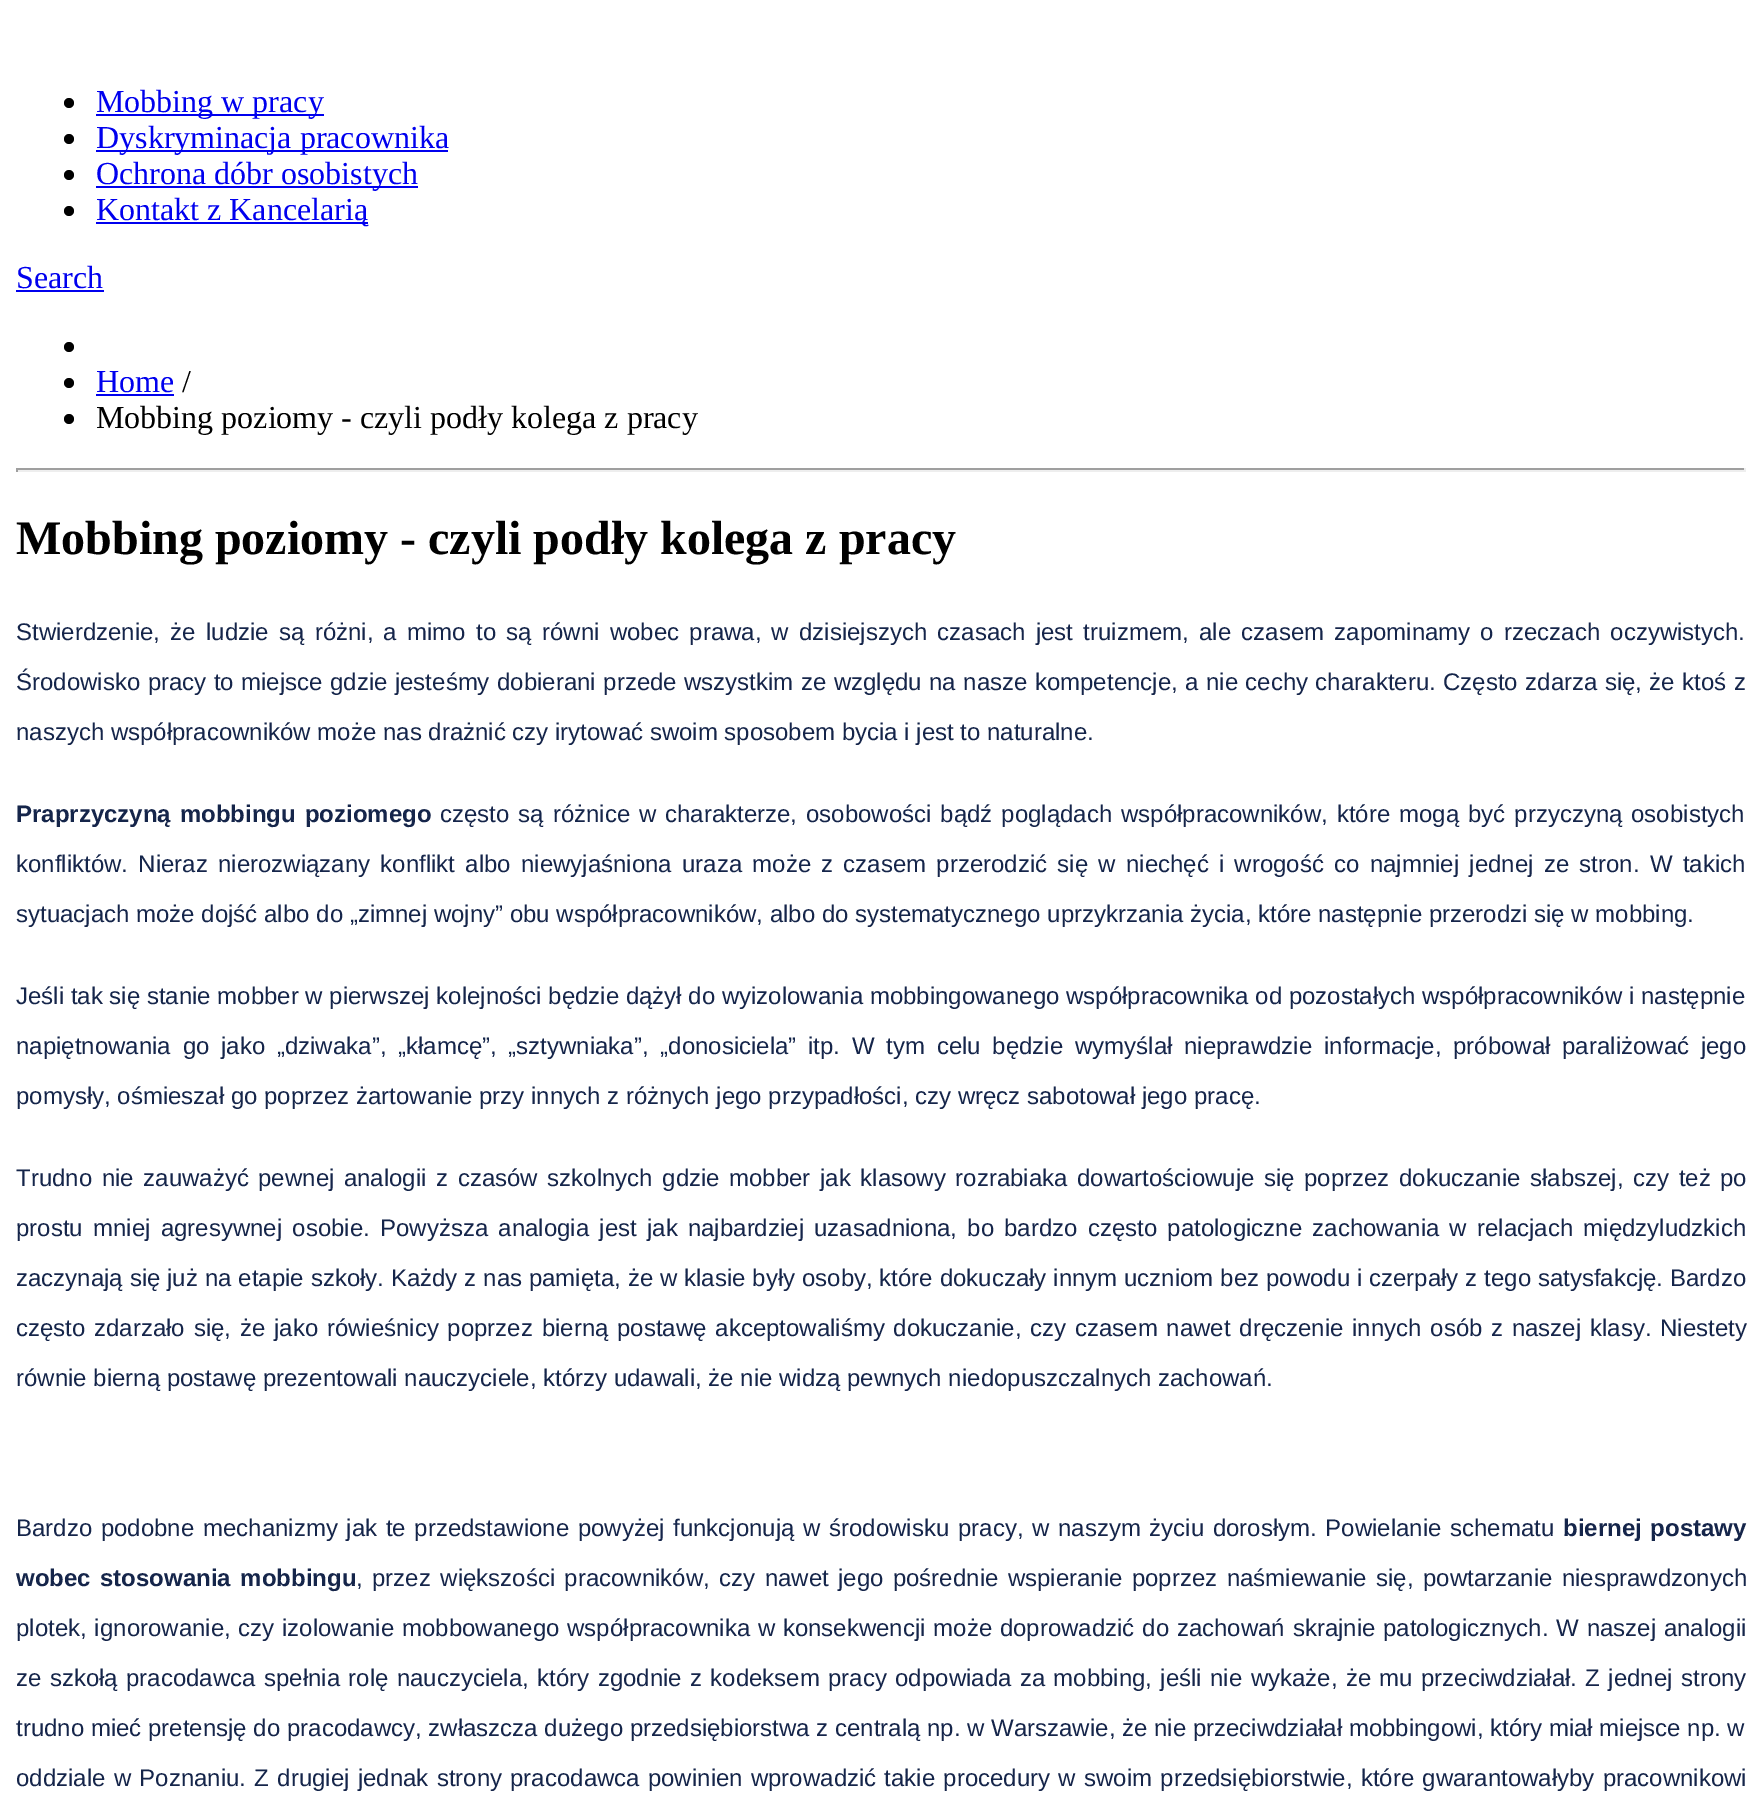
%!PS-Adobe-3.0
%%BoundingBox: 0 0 1761 1814
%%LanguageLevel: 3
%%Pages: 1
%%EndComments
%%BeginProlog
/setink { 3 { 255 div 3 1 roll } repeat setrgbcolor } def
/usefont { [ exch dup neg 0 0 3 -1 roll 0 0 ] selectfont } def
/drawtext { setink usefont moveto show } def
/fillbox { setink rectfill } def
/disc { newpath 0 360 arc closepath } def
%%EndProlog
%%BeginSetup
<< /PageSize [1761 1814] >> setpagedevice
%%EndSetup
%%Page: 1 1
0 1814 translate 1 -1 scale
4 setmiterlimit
0 0 1761 1814 255 255 255 fillbox
0 0 0 setink
69 103 5 disc fill
96 114 228 2 0 0 238 fillbox
(Mobbing w pracy) 96 112 /LiberationSerif-Regular 32 0 0 238 drawtext
0 0 0 setink
69 139 5 disc fill
96 150 352 2 0 0 238 fillbox
(Dyskryminacja pracownika) 96 148 /LiberationSerif-Regular 32 0 0 238 drawtext
0 0 0 setink
69 175 5 disc fill
96 186 322 2 0 0 238 fillbox
(Ochrona dóbr osobistych) 96 184 /LiberationSerif-Regular 32 0 0 238 drawtext
0 0 0 setink
69 211 5 disc fill
96 222 272 2 0 0 238 fillbox
(Kontakt z Kancelarią) 96 220 /LiberationSerif-Regular 32 0 0 238 drawtext
(Search) 16 288 /LiberationSerif-Regular 32 0 0 238 drawtext
16 290 88 2 0 0 238 fillbox
0 0 0 setink
69 347 5 disc fill
69 383 5 disc fill
(Home) 96 392 /LiberationSerif-Regular 32 0 0 238 drawtext
96 394 78 2 0 0 238 fillbox
(/) 182 392 /LiberationSerif-Regular 32 0 0 0 drawtext
69 419 5 disc fill
(Mobbing poziomy - czyli podły kolega z pracy) 96 428 /LiberationSerif-Regular 32 0 0 0 drawtext
16 468 1730 2 159 159 159 fillbox
1744 468 2 4 238 238 238 fillbox
16 470 1730 2 238 238 238 fillbox
16 468 2 4 159 159 159 fillbox
(Mobbing poziomy - czyli podły kolega z pracy) 16 554 /LiberationSerif-Bold 48 0 0 0 drawtext
/LiberationSans-Regular 24 usefont
21 37 74 setink
16 640 moveto 3.6 0 32 (Stwierdzenie, że ludzie są różni, a mimo to są równi wobec prawa, w dzisiejszych czasach jest truizmem, ale czasem zapominamy o rzeczach oczywistych.) widthshow
16 690 moveto 0.8 0 32 (Środowisko pracy to miejsce gdzie jesteśmy dobierani przede wszystkim ze względu na nasze kompetencje, a nie cechy charakteru. Często zdarza się, że ktoś z) widthshow
(naszych współpracowników może nas drażnić czy irytować swoim sposobem bycia i jest to naturalne.) 16 740 /LiberationSans-Regular 24 21 37 74 drawtext
/LiberationSans-Bold 24 usefont
16 822 moveto 2.25 0 32 (Praprzyczyną mobbingu poziomego) widthshow
/LiberationSans-Regular 24 usefont
440 822 moveto 2.25 0 32 (często są różnice w charakterze, osobowości bądź poglądach współpracowników, które mogą być przyczyną osobistych) widthshow
16 872 moveto 3.6 0 32 (konfliktów. Nieraz nierozwiązany konflikt albo niewyjaśniona uraza może z czasem przerodzić się w niechęć i wrogość co najmniej jednej ze stron. W takich) widthshow
(sytuacjach może dojść albo do „zimnej wojny” obu współpracowników, albo do systematycznego uprzykrzania życia, które następnie przerodzi się w mobbing.) 16 922 /LiberationSans-Regular 24 21 37 74 drawtext
(Jeśli tak się stanie mobber w pierwszej kolejności będzie dążył do wyizolowania mobbingowanego współpracownika od pozostałych współpracowników i następnie) 16 1004 /LiberationSans-Regular 24 21 37 74 drawtext
16 1054 moveto 5.1 0 32 (napiętnowania go jako „dziwaka”, „kłamcę”, „sztywniaka”, „donosiciela” itp. W tym celu będzie wymyślał nieprawdzie informacje, próbował paraliżować jego) widthshow
(pomysły, ośmieszał go poprzez żartowanie przy innych z różnych jego przypadłości, czy wręcz sabotował jego pracę.) 16 1104 /LiberationSans-Regular 24 21 37 74 drawtext
16 1186 moveto 2.9 0 32 (Trudno nie zauważyć pewnej analogii z czasów szkolnych gdzie mobber jak klasowy rozrabiaka dowartościowuje się poprzez dokuczanie słabszej, czy też po) widthshow
16 1236 moveto 3.6 0 32 (prostu mniej agresywnej osobie. Powyższa analogia jest jak najbardziej uzasadniona, bo bardzo często patologiczne zachowania w relacjach międzyludzkich) widthshow
16 1286 moveto 0.2 0 32 (zaczynają się już na etapie szkoły. Każdy z nas pamięta, że w klasie były osoby, które dokuczały innym uczniom bez powodu i czerpały z tego satysfakcję. Bardzo) widthshow
16 1336 moveto 2.1 0 32 (często zdarzało się, że jako rówieśnicy poprzez bierną postawę akceptowaliśmy dokuczanie, czy czasem nawet dręczenie innych osób z naszej klasy. Niestety) widthshow
(równie bierną postawę prezentowali nauczyciele, którzy udawali, że nie widzą pewnych niedopuszczalnych zachowań.) 16 1386 /LiberationSans-Regular 24 21 37 74 drawtext
16 1536 moveto 2 0 32 (Bardzo podobne mechanizmy jak te przedstawione powyżej funkcjonują w środowisku pracy, w naszym życiu dorosłym. Powielanie schematu) widthshow
/LiberationSans-Bold 24 usefont
1563 1536 moveto 2 0 32 (biernej postawy) widthshow
16 1586 moveto 2.75 0 32 (wobec stosowania mobbingu) widthshow
/LiberationSans-Regular 24 usefont
356 1586 moveto 2.75 0 32 (, przez większości pracowników, czy nawet jego pośrednie wspieranie poprzez naśmiewanie się, powtarzanie niesprawdzonych) widthshow
16 1636 moveto 1.1 0 32 (plotek, ignorowanie, czy izolowanie mobbowanego współpracownika w konsekwencji może doprowadzić do zachowań skrajnie patologicznych. W naszej analogii) widthshow
16 1686 moveto 1.7 0 32 (ze szkołą pracodawca spełnia rolę nauczyciela, który zgodnie z kodeksem pracy odpowiada za mobbing, jeśli nie wykaże, że mu przeciwdziałał. Z jednej strony) widthshow
(trudno mieć pretensję do pracodawcy, zwłaszcza dużego przedsiębiorstwa z centralą np. w Warszawie, że nie przeciwdziałał mobbingowi, który miał miejsce np. w) 16 1736 /LiberationSans-Regular 24 21 37 74 drawtext
16 1786 moveto 1.6 0 32 (oddziale w Poznaniu. Z drugiej jednak strony pracodawca powinien wprowadzić takie procedury w swoim przedsiębiorstwie, które gwarantowałyby pracownikowi) widthshow
showpage
%%EOF
